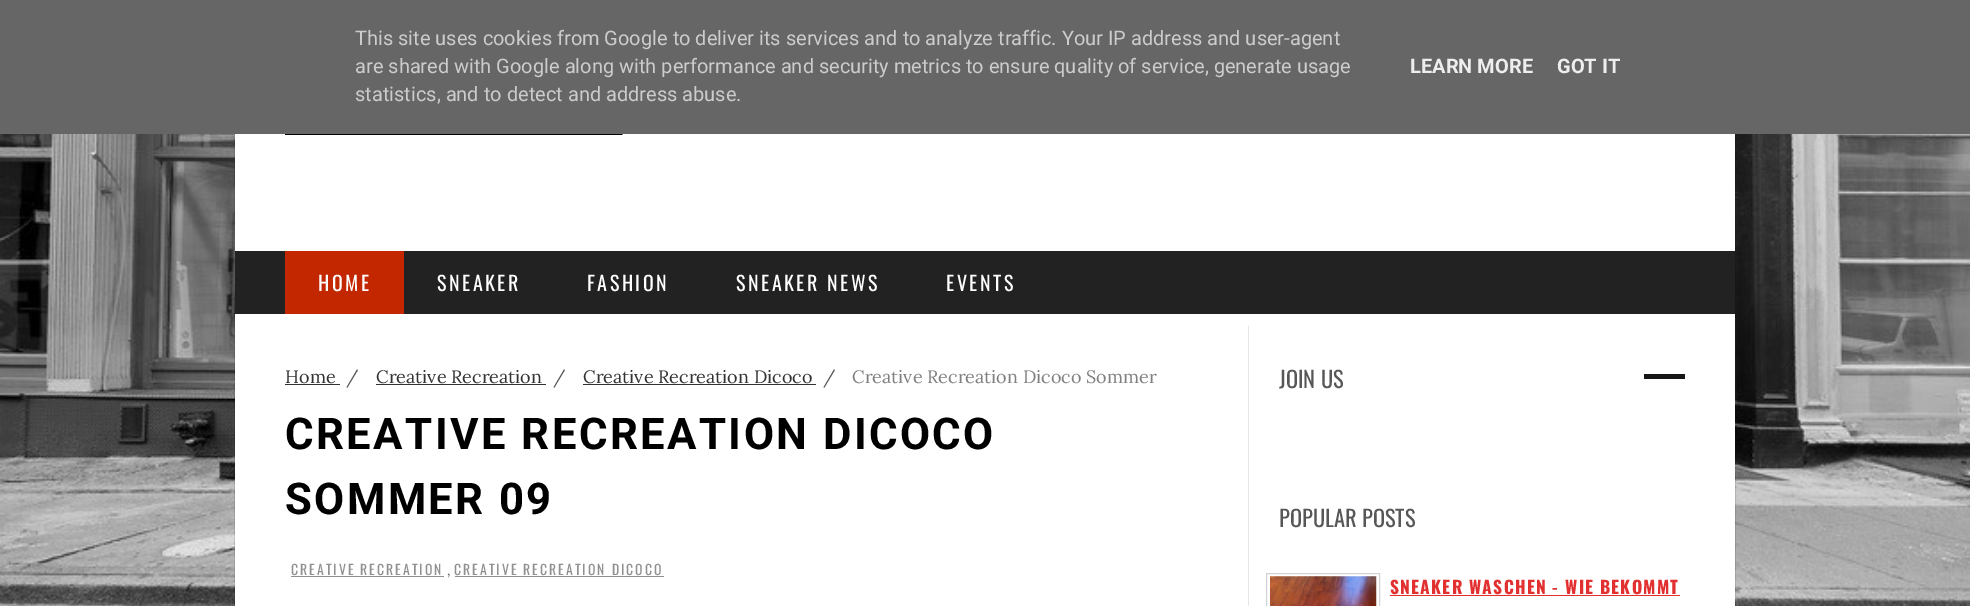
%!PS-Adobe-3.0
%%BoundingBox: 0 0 1970 606
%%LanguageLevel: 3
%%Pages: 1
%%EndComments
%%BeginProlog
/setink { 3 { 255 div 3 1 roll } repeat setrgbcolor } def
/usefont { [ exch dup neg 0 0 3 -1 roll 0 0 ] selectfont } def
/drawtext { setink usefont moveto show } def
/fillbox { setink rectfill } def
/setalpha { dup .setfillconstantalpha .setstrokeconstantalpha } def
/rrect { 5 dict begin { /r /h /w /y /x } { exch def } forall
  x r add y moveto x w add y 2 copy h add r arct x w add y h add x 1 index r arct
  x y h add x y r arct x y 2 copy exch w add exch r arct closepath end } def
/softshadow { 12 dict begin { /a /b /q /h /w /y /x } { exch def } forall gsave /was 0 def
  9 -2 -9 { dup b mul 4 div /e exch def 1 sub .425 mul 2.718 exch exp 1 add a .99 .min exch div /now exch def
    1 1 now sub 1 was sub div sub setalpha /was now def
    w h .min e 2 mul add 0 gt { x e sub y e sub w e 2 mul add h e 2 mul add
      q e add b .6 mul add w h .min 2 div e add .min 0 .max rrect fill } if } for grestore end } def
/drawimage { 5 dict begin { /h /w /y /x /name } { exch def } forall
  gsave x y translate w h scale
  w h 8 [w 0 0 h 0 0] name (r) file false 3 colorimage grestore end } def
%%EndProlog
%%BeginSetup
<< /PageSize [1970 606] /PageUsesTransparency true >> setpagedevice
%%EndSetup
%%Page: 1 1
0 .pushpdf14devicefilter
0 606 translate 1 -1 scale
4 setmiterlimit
0 0 1970 606 255 255 255 fillbox
(assets/img1.rgb) 0 134 1970 472 drawimage
0 0 0 setink
235 0 1500 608 0 0.5 0.4 softshadow
0 0 1970 134 102 102 102 fillbox
(This site uses cookies from Google to deliver its services and to analyze traffic. Your IP address and user-agent) 355 45 /Roboto-Regular 20 204 204 204 drawtext
(are shared with Google along with performance and security metrics to ensure quality of service, generate usage) 355 73 /Roboto-Regular 20 204 204 204 drawtext
(statistics, and to detect and address abuse.) 355 101 /Roboto-Regular 20 204 204 204 drawtext
(LEARN MORE) 1410 73 /Roboto-Bold 20 238 238 238 drawtext
(GOT IT) 1557 73 /Roboto-Bold 20 238 238 238 drawtext
235 134 1500 472 255 255 255 fillbox
(assets/img2.rgb) 285 134 338 1 drawimage
235 251 1500 63 34 34 34 fillbox
285 251 119 63 195 39 0 fillbox
/Oswald-Regular 20 usefont
255 255 255 setink
318 291 moveto 2.5 0 (HOME) ashow
437 291 moveto 2.5 0 (SNEAKER) ashow
587 291 moveto 2.5 0 (FASHION) ashow
736 291 moveto 2.5 0 (SNEAKER NEWS) ashow
946 291 moveto 2.5 0 (EVENTS) ashow
1248 326 1 280 230 230 230 fillbox
(Home) 285 383 /Lora-Regular 18 51 51 51 drawtext
285 384 55 1 51 51 51 fillbox
(/) 346 383 /Lora-Regular 18 87 87 87 drawtext
(Creative Recreation) 376 383 /Lora-Regular 18 51 51 51 drawtext
376 384 170 1 51 51 51 fillbox
(/) 553 383 /Lora-Regular 18 87 87 87 drawtext
(Creative Recreation Dicoco) 583 383 /Lora-Regular 18 51 51 51 drawtext
583 384 233 1 51 51 51 fillbox
(/) 823 383 /Lora-Regular 18 87 87 87 drawtext
(Creative Recreation Dicoco Sommer) 852 383 /Lora-Regular 18 128 128 128 drawtext
/Roboto-Bold 43.75 usefont
0 0 0 setink
285 449 moveto 2.4 0 (CREATIVE RECREATION DICOCO) ashow
285 514 moveto 2.4 0 (SOMMER 09) ashow
/Oswald-Regular 13.75 usefont
144 144 144 setink
291 575 moveto 2 0 (CREATIVE RECREATION) ashow
291 576 153 1 144 144 144 fillbox
(,) 447 575 /Lora-Regular 13.75 102 102 102 drawtext
/Oswald-Regular 13.75 usefont
144 144 144 setink
454 575 moveto 2 0 (CREATIVE RECREATION DICOCO) ashow
455 576 209 1 144 144 144 fillbox
(JOIN US) 1279 388 /Oswald-Regular 22.5 87 87 87 drawtext
1644 374 41 5 22 22 22 fillbox
(POPULAR POSTS) 1279 527 /Oswald-Regular 22.5 87 87 87 drawtext
211 211 211 setink
1266.5 573.5 113 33 rectstroke
(assets/img3.rgb) 1270 576 107 30 drawimage
/Oswald-Bold 17.5 usefont
226 47 47 setink
1390 594 moveto 1.25 0 (SNEAKER WASCHEN - WIE BEKOMMT) ashow
1390 595 290 1 226 47 47 fillbox
.poppdf14devicefilter showpage
%%EOF
